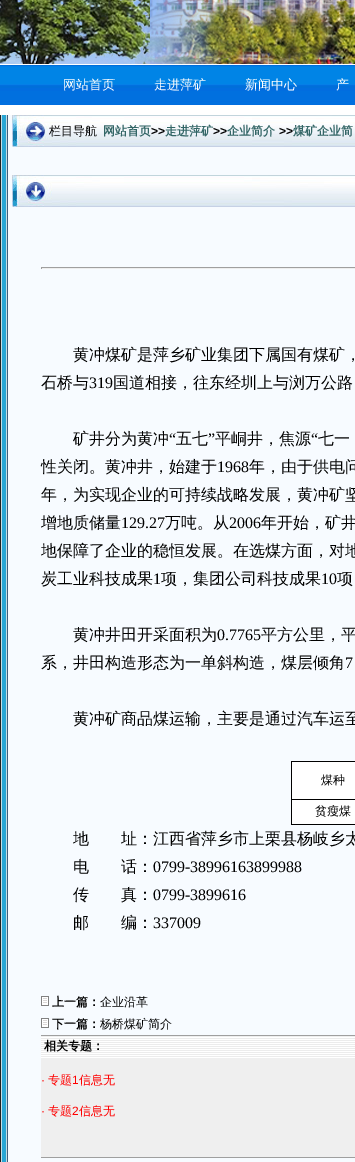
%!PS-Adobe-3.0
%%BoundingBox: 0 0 355 1162
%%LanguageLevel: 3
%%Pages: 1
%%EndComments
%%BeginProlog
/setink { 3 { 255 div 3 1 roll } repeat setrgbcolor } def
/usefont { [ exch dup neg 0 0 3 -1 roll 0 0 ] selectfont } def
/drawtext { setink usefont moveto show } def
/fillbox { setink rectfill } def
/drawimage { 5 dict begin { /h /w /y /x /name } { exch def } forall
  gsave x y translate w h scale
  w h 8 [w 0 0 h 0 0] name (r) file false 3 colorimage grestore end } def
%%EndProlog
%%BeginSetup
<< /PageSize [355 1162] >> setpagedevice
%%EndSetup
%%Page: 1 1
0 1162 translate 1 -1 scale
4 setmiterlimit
0 0 355 1162 255 255 255 fillbox
(assets/img1.rgb) 0 0 355 64 drawimage
(assets/img2.rgb) 0 65 355 40 drawimage
(网站首页) 63 89 /WenQuanYiZenHei-Medium 13 255 255 255 drawtext
(走进萍矿) 154 89 /WenQuanYiZenHei-Medium 13 255 255 255 drawtext
(新闻中心) 245 89 /WenQuanYiZenHei-Medium 13 255 255 255 drawtext
(产) 336 89 /WenQuanYiZenHei-Medium 13 255 255 255 drawtext
(assets/img3.rgb) 0 115 355 1047 drawimage
(assets/img4.rgb) 12 115 343 32 drawimage
(栏目导航) 49 135 /WenQuanYiZenHei-Medium 12 0 0 0 drawtext
(网站首页) 103 135 /WenQuanYiZenHei-Bold 12 51 102 102 drawtext
(>>) 151 135 /LiberationSans-Bold 12 0 0 0 drawtext
(走进萍矿) 165 135 /WenQuanYiZenHei-Bold 12 51 102 102 drawtext
(>>) 213 135 /LiberationSans-Bold 12 0 0 0 drawtext
(企业简介) 227 135 /WenQuanYiZenHei-Bold 12 51 102 102 drawtext
(>>) 279 135 /LiberationSans-Bold 12 0 0 0 drawtext
(煤矿企业简) 293 135 /WenQuanYiZenHei-Bold 12 51 102 102 drawtext
(assets/img5.rgb) 12 175 343 32 drawimage
41 267 314 1 159 159 159 fillbox
41 268 314 1 238 238 238 fillbox
41 267 1 2 159 159 159 fillbox
(黄冲煤矿是萍乡矿业集团下属国有煤矿，) 73 360 /WenQuanYiZenHei-Medium 16 0 0 0 drawtext
(石桥与) 41 388 /WenQuanYiZenHei-Medium 16 0 0 0 drawtext
(319) 89 388 /LiberationSerif-Regular 16 0 0 0 drawtext
(国道相接，往东经圳上与浏万公路) 113 388 /WenQuanYiZenHei-Medium 16 0 0 0 drawtext
(矿井分为黄冲) 73 444 /WenQuanYiZenHei-Medium 16 0 0 0 drawtext
(“) 169 444 /LiberationSerif-Regular 16 0 0 0 drawtext
(五七) 176 444 /WenQuanYiZenHei-Medium 16 0 0 0 drawtext
(”) 208 444 /LiberationSerif-Regular 16 0 0 0 drawtext
(平峒井，焦源) 215 444 /WenQuanYiZenHei-Medium 16 0 0 0 drawtext
(“) 311 444 /LiberationSerif-Regular 16 0 0 0 drawtext
(七一) 318 444 /WenQuanYiZenHei-Medium 16 0 0 0 drawtext
(性关闭。黄冲井，始建于) 41 472 /WenQuanYiZenHei-Medium 16 0 0 0 drawtext
(1968) 217 472 /LiberationSerif-Regular 16 0 0 0 drawtext
(年，由于供电问) 249 472 /WenQuanYiZenHei-Medium 16 0 0 0 drawtext
(年，为实现企业的可持续战略发展，黄冲矿坚) 41 500 /WenQuanYiZenHei-Medium 16 0 0 0 drawtext
(增地质储量) 41 528 /WenQuanYiZenHei-Medium 16 0 0 0 drawtext
(129.27) 121 528 /LiberationSerif-Regular 16 0 0 0 drawtext
(万吨。从) 165 528 /WenQuanYiZenHei-Medium 16 0 0 0 drawtext
(2006) 229 528 /LiberationSerif-Regular 16 0 0 0 drawtext
(年开始，矿井) 261 528 /WenQuanYiZenHei-Medium 16 0 0 0 drawtext
(地保障了企业的稳恒发展。在选煤方面，对地) 41 556 /WenQuanYiZenHei-Medium 16 0 0 0 drawtext
(炭工业科技成果) 41 584 /WenQuanYiZenHei-Medium 16 0 0 0 drawtext
(1) 153 584 /LiberationSerif-Regular 16 0 0 0 drawtext
(项，集团公司科技成果) 161 584 /WenQuanYiZenHei-Medium 16 0 0 0 drawtext
(10) 321 584 /LiberationSerif-Regular 16 0 0 0 drawtext
(项) 337 584 /WenQuanYiZenHei-Medium 16 0 0 0 drawtext
(黄冲井田开采面积为) 73 640 /WenQuanYiZenHei-Medium 16 0 0 0 drawtext
(0.7765) 217 640 /LiberationSerif-Regular 16 0 0 0 drawtext
(平方公里，平) 261 640 /WenQuanYiZenHei-Medium 16 0 0 0 drawtext
(系，井田构造形态为一单斜构造，煤层倾角) 41 668 /WenQuanYiZenHei-Medium 16 0 0 0 drawtext
(7) 345 668 /LiberationSerif-Regular 16 0 0 0 drawtext
(黄冲矿商品煤运输，主要是通过汽车运至) 73 724 /WenQuanYiZenHei-Medium 16 0 0 0 drawtext
292 762 63 37 255 255 255 fillbox
291 761 64 1 0 0 0 fillbox
291 824 64 1 0 0 0 fillbox
291 799 1 26 0 0 0 fillbox
291 799 64 1 0 0 0 fillbox
291 761 1 39 0 0 0 fillbox
(煤种) 321 784 /WenQuanYiZenHei-Medium 12 0 0 0 drawtext
292 800 63 24 255 255 255 fillbox
(贫瘦煤) 315 815 /WenQuanYiZenHei-Medium 12 0 0 0 drawtext
(地　　址：江西省萍乡市上栗县杨岐乡太) 73 844 /WenQuanYiZenHei-Medium 16 0 0 0 drawtext
(电　　话：) 73 872 /WenQuanYiZenHei-Medium 16 0 0 0 drawtext
(0799-38996163899988) 153 872 /LiberationSerif-Regular 16 0 0 0 drawtext
(传　　真：) 73 900 /WenQuanYiZenHei-Medium 16 0 0 0 drawtext
(0799-3899616) 153 900 /LiberationSerif-Regular 16 0 0 0 drawtext
(邮　　编：) 73 928 /WenQuanYiZenHei-Medium 16 0 0 0 drawtext
(337009) 153 928 /LiberationSerif-Regular 16 0 0 0 drawtext
(assets/img6.rgb) 41 996 8 10 drawimage
(上一篇：) 52 1006 /WenQuanYiZenHei-Bold 12 0 0 0 drawtext
(企业沿革) 100 1006 /WenQuanYiZenHei-Medium 12 0 0 0 drawtext
(assets/img6.rgb) 41 1018 8 10 drawimage
(下一篇：) 52 1028 /WenQuanYiZenHei-Bold 12 0 0 0 drawtext
(杨桥煤矿简介) 100 1028 /WenQuanYiZenHei-Medium 12 0 0 0 drawtext
41 1035 314 1 159 159 159 fillbox
41 1036 314 121 239 239 239 fillbox
(assets/img7.rgb) 41 1037 314 21 drawimage
(相关专题：) 44 1050 /WenQuanYiZenHei-Bold 12 0 0 0 drawtext
(·) 41 1084 /LiberationSans-Regular 12 255 0 0 drawtext
(专题) 48 1084 /WenQuanYiZenHei-Medium 12 255 0 0 drawtext
(1) 72 1084 /LiberationSans-Regular 12 255 0 0 drawtext
(信息无) 79 1084 /WenQuanYiZenHei-Medium 12 255 0 0 drawtext
(·) 41 1115 /LiberationSans-Regular 12 255 0 0 drawtext
(专题) 48 1115 /WenQuanYiZenHei-Medium 12 255 0 0 drawtext
(2) 72 1115 /LiberationSans-Regular 12 255 0 0 drawtext
(信息无) 79 1115 /WenQuanYiZenHei-Medium 12 255 0 0 drawtext
41 1157 314 1 159 159 159 fillbox
showpage
%%EOF
